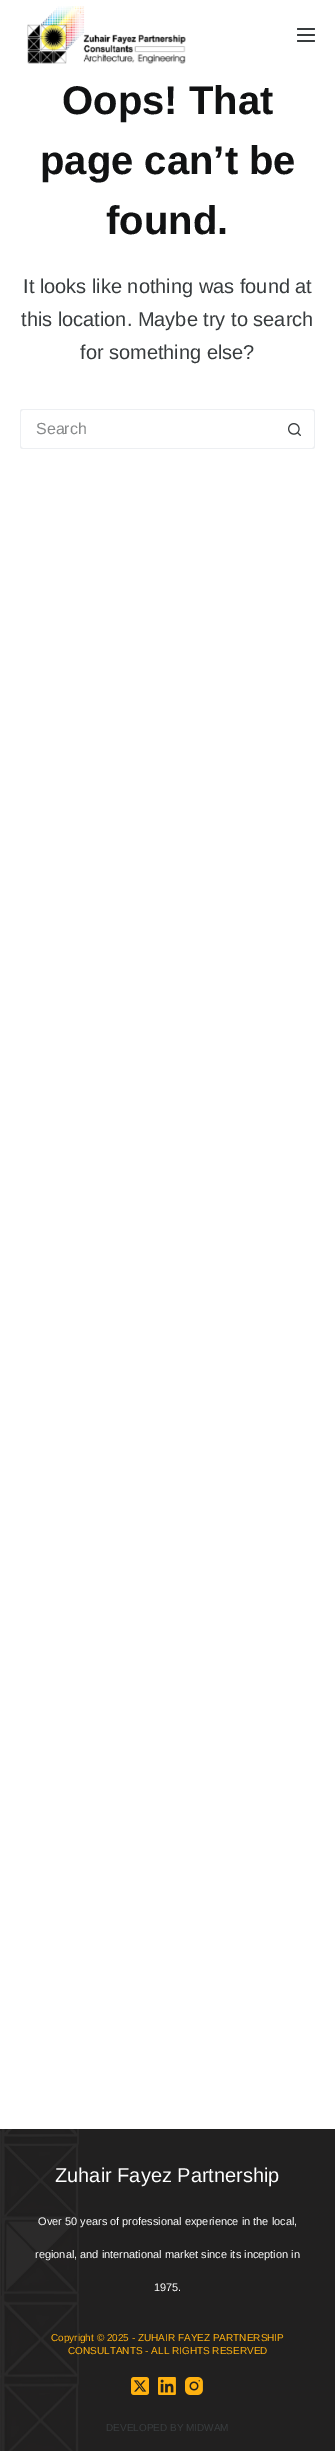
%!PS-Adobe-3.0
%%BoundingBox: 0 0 335 2451
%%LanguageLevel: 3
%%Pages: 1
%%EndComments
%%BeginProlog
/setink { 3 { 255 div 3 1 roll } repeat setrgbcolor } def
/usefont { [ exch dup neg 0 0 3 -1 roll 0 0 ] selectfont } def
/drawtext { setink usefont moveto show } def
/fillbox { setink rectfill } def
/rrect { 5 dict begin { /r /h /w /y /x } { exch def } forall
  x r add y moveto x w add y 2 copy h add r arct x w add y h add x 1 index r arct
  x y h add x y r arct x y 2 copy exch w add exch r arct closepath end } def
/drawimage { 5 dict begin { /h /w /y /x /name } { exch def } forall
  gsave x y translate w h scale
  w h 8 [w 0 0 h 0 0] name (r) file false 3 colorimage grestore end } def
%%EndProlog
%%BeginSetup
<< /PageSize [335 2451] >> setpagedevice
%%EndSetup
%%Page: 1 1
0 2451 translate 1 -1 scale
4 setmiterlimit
0 0 335 2451 255 255 255 fillbox
(assets/img1.rgb) 27 6 159 58 drawimage
56 60 62 setink
297 28 18 2 1 rrect fill
297 34 18 2 1 rrect fill
297 40 18 2 1 rrect fill
(Oops! That) 62 114 /LiberationSans-Bold 40 17 18 19 drawtext
(page can’t be) 40 174 /LiberationSans-Bold 40 17 18 19 drawtext
(found.) 106 234 /LiberationSans-Bold 40 17 18 19 drawtext
(It looks like nothing was found at) 23 293 /LiberationSans-Regular 20 56 60 62 drawtext
(this location. Maybe try to search) 21 326 /LiberationSans-Regular 20 56 60 62 drawtext
(for something else?) 80 359 /LiberationSans-Regular 20 56 60 62 drawtext
237 239 242 setink
23 409 moveto 275 409 lineto 275 449 lineto 23 449 lineto 21 449 20 448 20 446 curveto 20 412 lineto 20 410 21 409 23 409 curveto closepath 23 410 moveto 275 410 lineto 275 448 lineto 23 448 lineto 22 448 21 447 21 446 curveto 21 412 lineto 21 411 22 410 23 410 curveto closepath eofill
(Search) 36 434 /LiberationSans-Regular 16 136 138 139 drawtext
237 239 242 setink
275 409 moveto 312 409 lineto 314 409 315 410 315 412 curveto 315 446 lineto 315 448 314 449 312 449 curveto 275 449 lineto closepath 275 410 moveto 312 410 lineto 313 410 314 411 314 412 curveto 314 446 lineto 314 447 313 448 312 448 curveto 275 448 lineto closepath eofill
(assets/img2.rgb) 288 423 13 13 drawimage
(assets/img3.rgb) 0 2129 335 322 drawimage
(Zuhair Fayez Partnership) 55 2182 /LiberationSans-Regular 20 255 255 255 drawtext
(Over 50 years of professional experience in the local,) 38 2225 /LiberationSans-Regular 11 255 255 255 drawtext
(regional, and international market since its inception in) 35 2258 /LiberationSans-Regular 11 255 255 255 drawtext
(1975.) 154 2291 /LiberationSans-Regular 11 255 255 255 drawtext
(Copyright © 2025 - ZUHAIR FAYEZ PARTNERSHIP) 51 2341 /LiberationSans-Regular 10 254 177 16 drawtext
(CONSULTANTS - ALL RIGHTS RESERVED) 68 2354 /LiberationSans-Regular 10 254 177 16 drawtext
(assets/img4.rgb) 131 2377 18 18 drawimage
(assets/img5.rgb) 158 2377 18 18 drawimage
(assets/img6.rgb) 185 2377 18 18 drawimage
(DEVELOPED BY MIDWAM) 106 2431 /LiberationSans-Regular 10 56 60 62 drawtext
showpage
%%EOF
